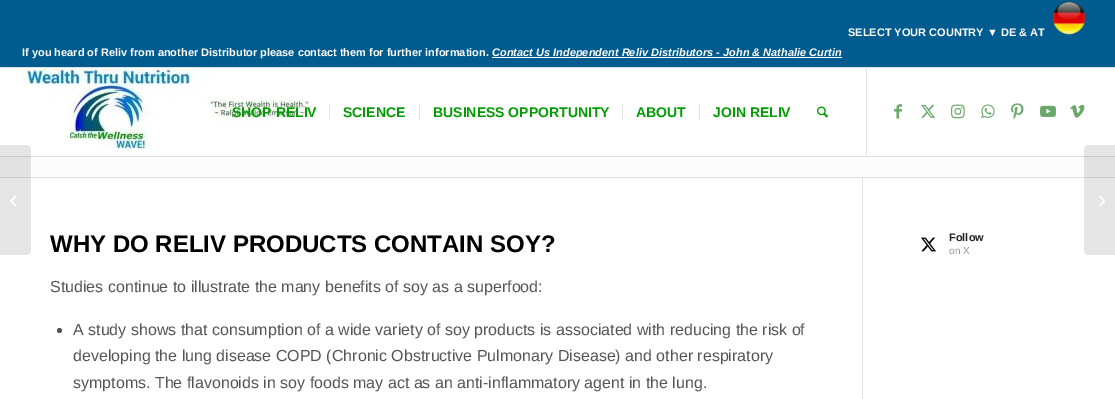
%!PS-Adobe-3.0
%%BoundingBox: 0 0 1115 399
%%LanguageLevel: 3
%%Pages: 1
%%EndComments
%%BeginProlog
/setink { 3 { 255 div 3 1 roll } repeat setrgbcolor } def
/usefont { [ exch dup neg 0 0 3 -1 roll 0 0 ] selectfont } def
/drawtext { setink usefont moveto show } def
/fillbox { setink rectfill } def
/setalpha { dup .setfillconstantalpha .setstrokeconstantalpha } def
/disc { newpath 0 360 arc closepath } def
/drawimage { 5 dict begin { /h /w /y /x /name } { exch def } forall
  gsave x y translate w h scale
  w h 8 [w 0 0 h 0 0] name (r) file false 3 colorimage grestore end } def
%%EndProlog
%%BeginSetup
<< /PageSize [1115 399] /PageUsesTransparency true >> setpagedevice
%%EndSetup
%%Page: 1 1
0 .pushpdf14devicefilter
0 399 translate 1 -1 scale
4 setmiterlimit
0 0 1115 399 255 255 255 fillbox
0 0 1115 67 0 91 143 fillbox
0 67 1115 1 225 225 225 fillbox
(SELECT YOUR COUNTRY ▼ DE & AT) 848 36 /LiberationSans-Bold 11 255 255 255 drawtext
(assets/img1.rgb) 1052 1 34 34 drawimage
(If you heard of Reliv from another Distributor please contact them for further information.) 22 56 /LiberationSans-Bold 11 255 255 255 drawtext
492 57 350 1 255 255 255 fillbox
(Contact Us Independent Reliv Distributors - John & Nathalie Curtin) 492 56 /LiberationSans-BoldItalic 11 255 255 255 drawtext
0 156 1115 1 225 225 225 fillbox
(assets/img2.rgb) 22 68 288 81 drawimage
866 68 1 88 225 225 225 fillbox
(SHOP RELIV) 232 117 /LiberationSans-Bold 14 0 156 0 drawtext
(SCIENCE) 343 117 /LiberationSans-Bold 14 0 156 0 drawtext
329 104 1 16 225 225 225 fillbox
(BUSINESS OPPORTUNITY) 433 117 /LiberationSans-Bold 14 0 156 0 drawtext
419 104 1 16 225 225 225 fillbox
(ABOUT) 636 117 /LiberationSans-Bold 14 0 156 0 drawtext
622 104 1 16 225 225 225 fillbox
(JOIN RELIV) 713 117 /LiberationSans-Bold 14 0 156 0 drawtext
699 104 1 16 225 225 225 fillbox
(assets/img3.rgb) 817 106 11 12 drawimage
(assets/img4.rgb) 894 104 8 15 drawimage
(assets/img5.rgb) 921 104 14 14 drawimage
(assets/img6.rgb) 951 104 14 15 drawimage
(assets/img7.rgb) 981 104 14 15 drawimage
(assets/img8.rgb) 1011 103 13 17 drawimage
(assets/img9.rgb) 1040 105 16 12 drawimage
(assets/img10.rgb) 1070 105 15 13 drawimage
0 157 1115 20 252 252 252 fillbox
0 177 1115 1 225 225 225 fillbox
0.1 setalpha
0 0 0 setink
0 145 moveto 27 145 lineto 29 145 31 147 31 149 curveto 31 251 lineto 31 253 29 255 27 255 curveto 0 255 lineto closepath fill
1 setalpha
(assets/img11.rgb) 10 195 6 12 drawimage
0.1 setalpha
1088 145 moveto 1115 145 lineto 1115 255 lineto 1088 255 lineto 1086 255 1084 253 1084 251 curveto 1084 149 lineto 1084 147 1086 145 1088 145 curveto closepath fill
1 setalpha
(assets/img12.rgb) 1099 195 6 12 drawimage
862 178 1 221 225 225 225 fillbox
(WHY DO RELIV PRODUCTS CONTAIN SOY?) 50 252 /LiberationSans-Bold 24 0 0 0 drawtext
(Studies continue to illustrate the many benefits of soy as a superfood:) 50 292 /LiberationSans-Regular 16 85 85 85 drawtext
59.5 330.5 2.5 disc fill
(A study shows that consumption of a wide variety of soy products is associated with reducing the risk of) 73 335 /LiberationSans-Regular 16 85 85 85 drawtext
(developing the lung disease COPD \(Chronic Obstructive Pulmonary Disease\) and other respiratory) 73 361 /LiberationSans-Regular 16 85 85 85 drawtext
(symptoms. The flavonoids in soy foods may act as an anti-inflammatory agent in the lung.) 73 388 /LiberationSans-Regular 16 85 85 85 drawtext
(assets/img13.rgb) 921 237 15 15 drawimage
(Follow) 949 241 /LiberationSans-Bold 11 34 34 34 drawtext
(on X) 949 254 /LiberationSans-Regular 10 145 145 145 drawtext
.poppdf14devicefilter showpage
%%EOF
